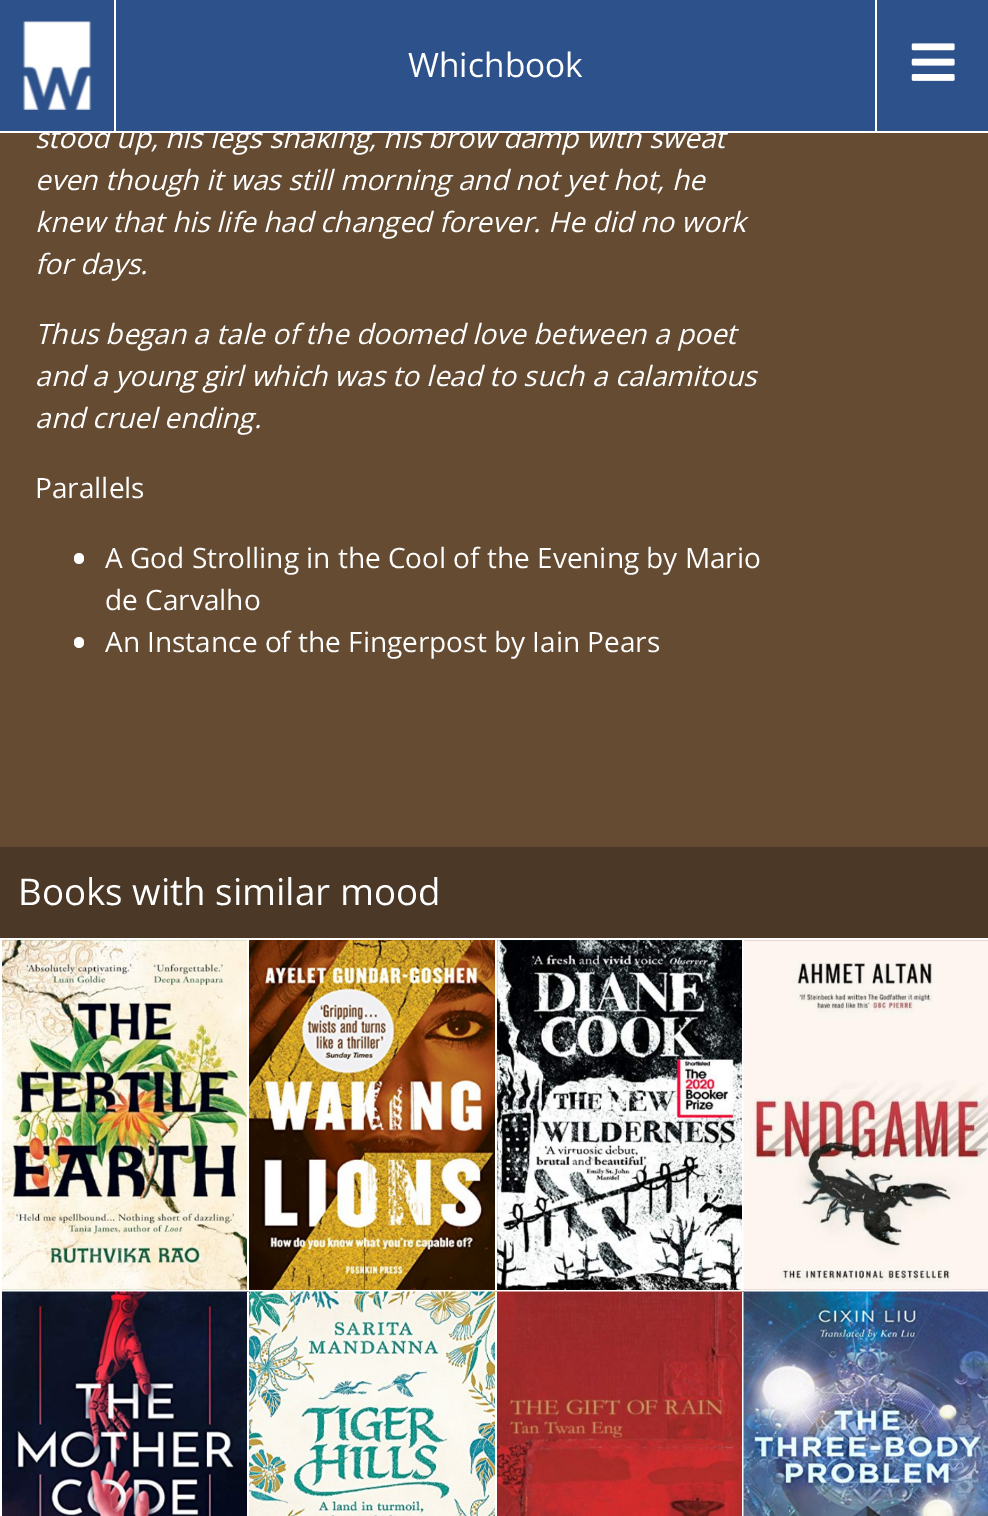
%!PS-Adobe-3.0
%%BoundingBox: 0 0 988 1516
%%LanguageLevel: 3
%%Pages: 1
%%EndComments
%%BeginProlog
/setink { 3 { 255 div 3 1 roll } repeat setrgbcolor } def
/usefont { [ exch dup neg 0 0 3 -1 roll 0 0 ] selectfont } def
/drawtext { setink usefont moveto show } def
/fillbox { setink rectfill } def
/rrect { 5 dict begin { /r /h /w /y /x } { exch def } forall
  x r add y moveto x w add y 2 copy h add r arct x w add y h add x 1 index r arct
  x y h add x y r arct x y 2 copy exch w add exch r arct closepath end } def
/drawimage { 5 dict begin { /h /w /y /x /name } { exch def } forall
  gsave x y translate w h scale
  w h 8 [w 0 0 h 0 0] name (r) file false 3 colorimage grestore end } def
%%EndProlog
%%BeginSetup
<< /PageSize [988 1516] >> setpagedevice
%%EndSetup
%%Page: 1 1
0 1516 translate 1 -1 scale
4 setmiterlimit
0 0 988 1516 100 75 50 fillbox
(stood up, his legs shaking, his brow damp with sweat) 35 148 /OpenSans-Italic 28 255 255 255 drawtext
0 0 988 131 45 81 139 fillbox
0 131 988 2 255 255 255 fillbox
114 0 2 131 255 255 255 fillbox
(assets/img1.rgb) 23 21 69 89 drawimage
(Whichbook) 408 77 /OpenSans-Regular 33.5 255 255 255 drawtext
875 0 2 131 255 255 255 fillbox
(assets/img2.rgb) 911 43 44 38 drawimage
(even though it was still morning and not yet hot, he) 35 190 /OpenSans-Italic 28 255 255 255 drawtext
(knew that his life had changed forever. He did no work) 35 232 /OpenSans-Italic 28 255 255 255 drawtext
(for days.) 35 274 /OpenSans-Italic 28 255 255 255 drawtext
(Thus began a tale of the doomed love between a poet) 35 344 /OpenSans-Italic 28 255 255 255 drawtext
(and a young girl which was to lead to such a calamitous) 35 386 /OpenSans-Italic 28 255 255 255 drawtext
(and cruel ending.) 35 428 /OpenSans-Italic 28 255 255 255 drawtext
(Parallels) 35 498 /OpenSans-Regular 28 255 255 255 drawtext
74 553 10 11 5 rrect fill
(A God Strolling in the Cool of the Evening by Mario) 105 568 /OpenSans-Regular 28 255 255 255 drawtext
(de Carvalho) 105 610 /OpenSans-Regular 28 255 255 255 drawtext
74 637 10 11 5 rrect fill
(An Instance of the Fingerpost by Iain Pears) 105 652 /OpenSans-Regular 28 255 255 255 drawtext
0 847 988 91 75 56 38 fillbox
(Books with similar mood) 18 905 /OpenSans-Regular 36.75 255 255 255 drawtext
0 938 988 2 255 255 255 fillbox
0 1290 988 2 255 255 255 fillbox
0 940 2 576 255 255 255 fillbox
(assets/img3.rgb) 2 940 245 350 drawimage
247 940 2 352 255 255 255 fillbox
(assets/img4.rgb) 249 940 246 350 drawimage
495 940 2 352 255 255 255 fillbox
(assets/img5.rgb) 497 940 245 350 drawimage
742 940 2 352 255 255 255 fillbox
(assets/img6.rgb) 743 940 245 350 drawimage
(assets/img7.rgb) 2 1291 247 225 drawimage
247 1292 2 224 255 255 255 fillbox
(assets/img8.rgb) 249 1291 248 225 drawimage
495 1292 2 224 255 255 255 fillbox
(assets/img9.rgb) 497 1291 247 225 drawimage
742 1292 2 224 255 255 255 fillbox
(assets/img10.rgb) 743 1291 245 225 drawimage
showpage
%%EOF
